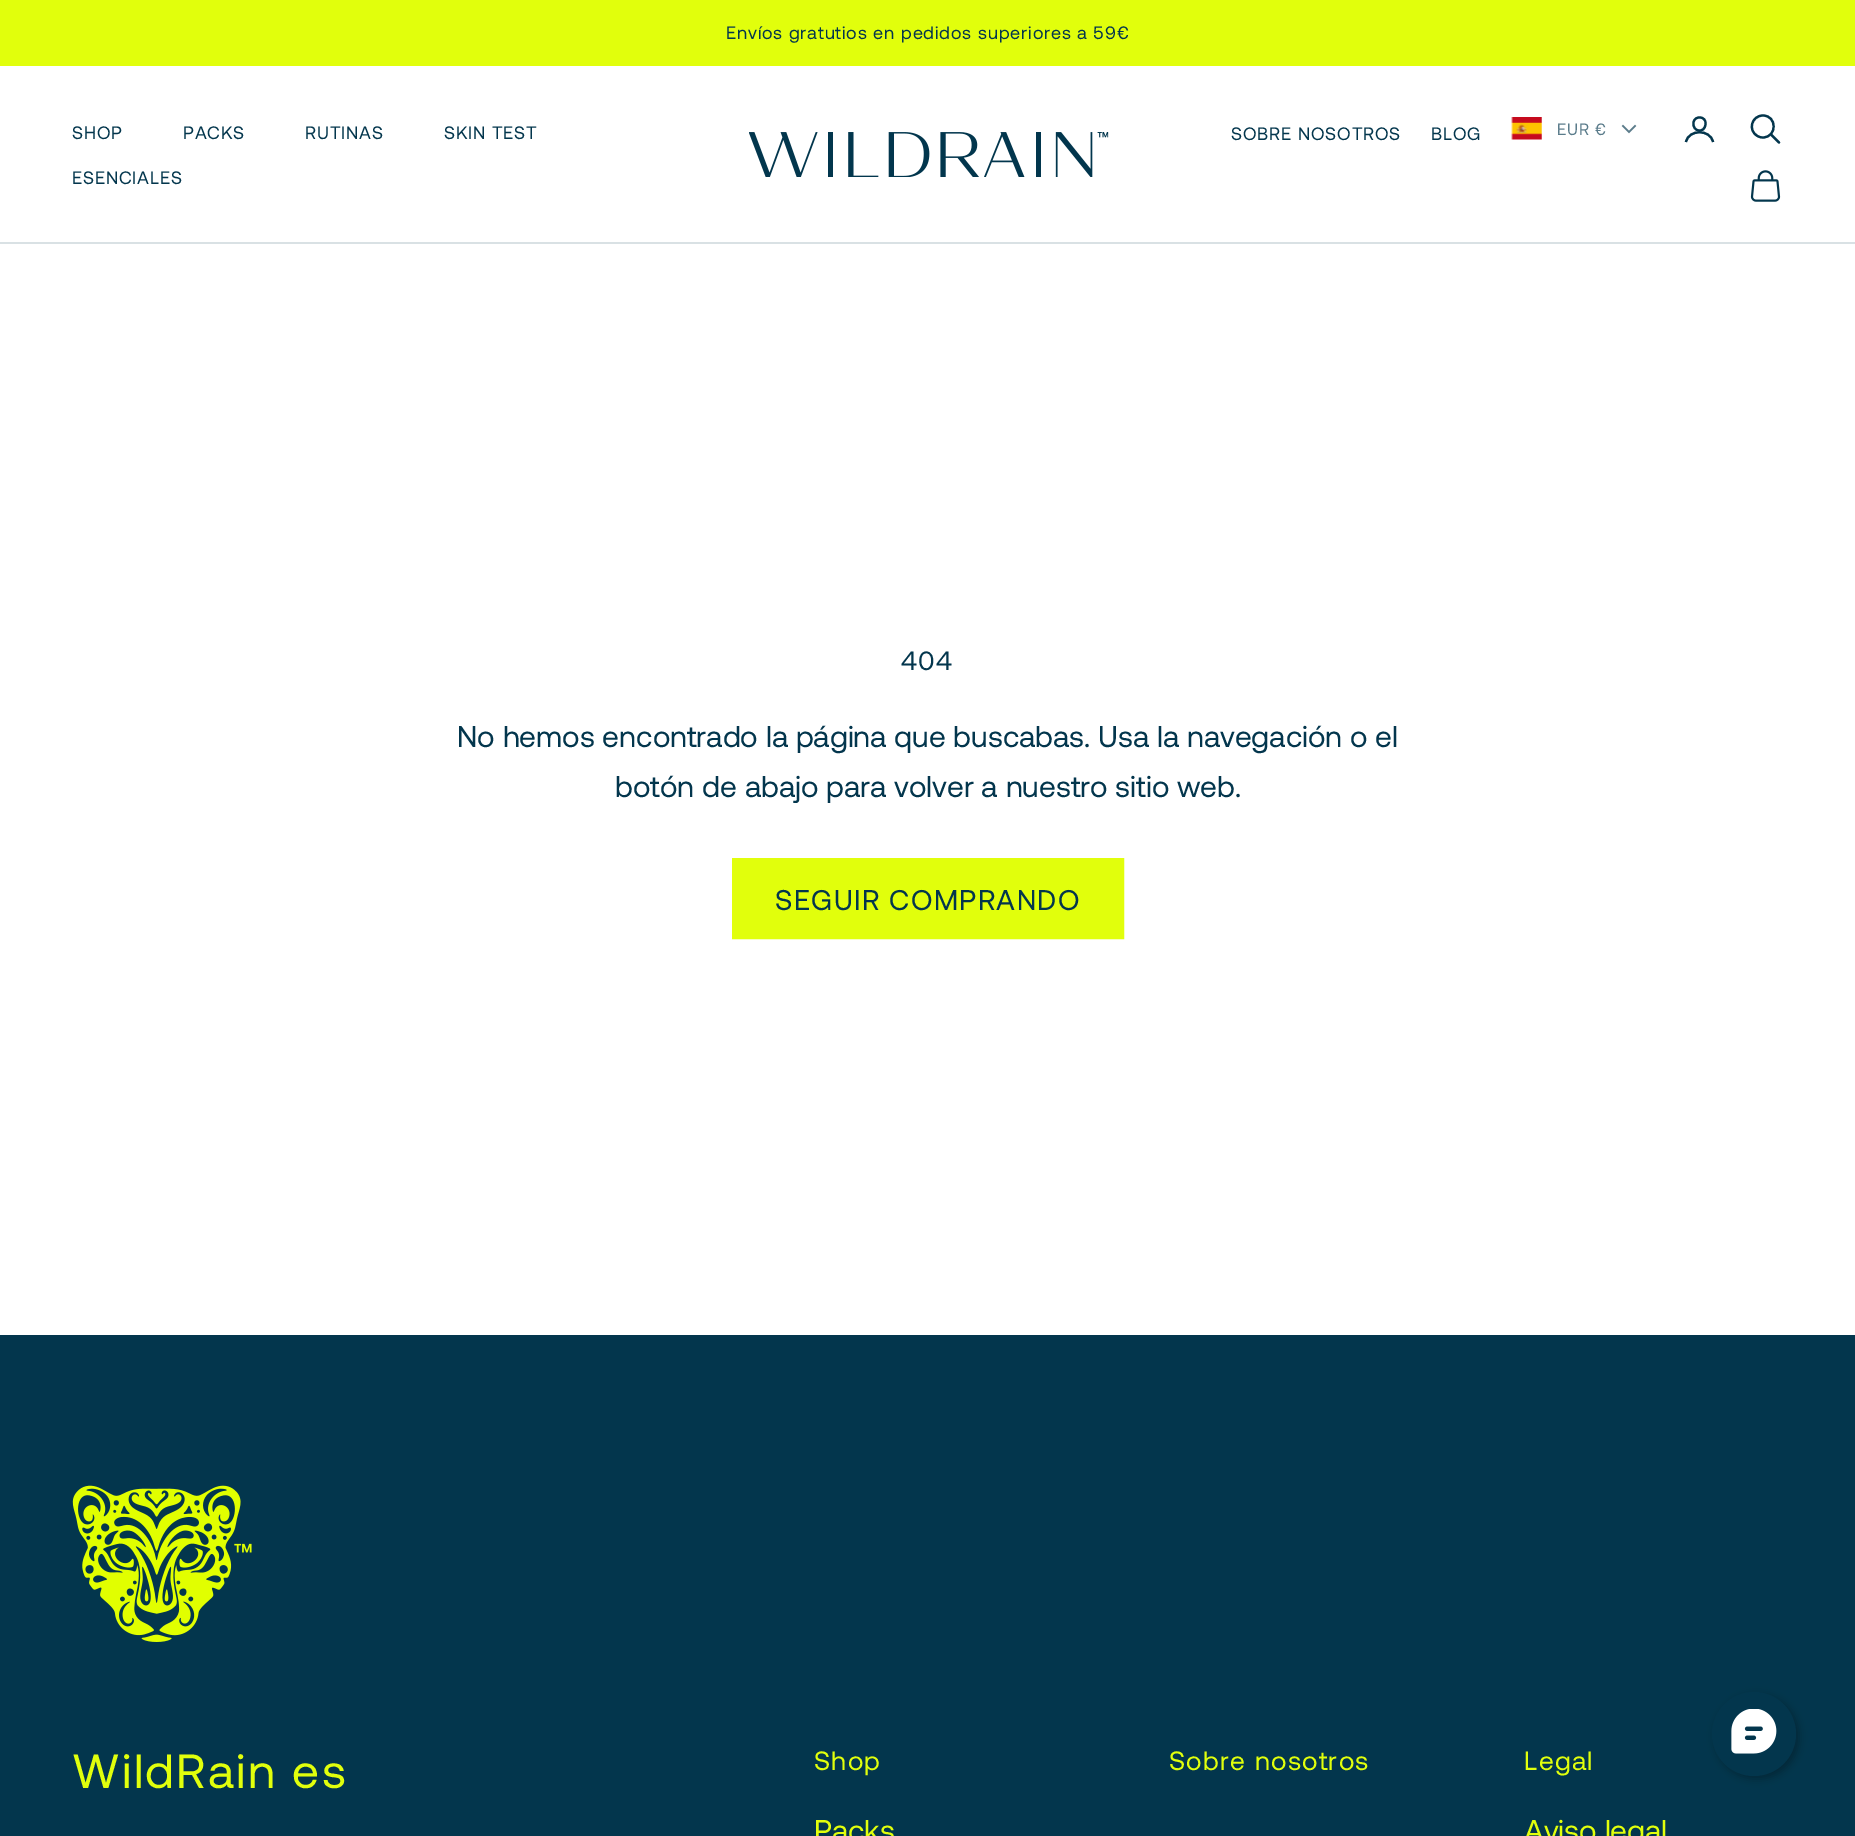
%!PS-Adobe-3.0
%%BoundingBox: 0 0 1855 1836
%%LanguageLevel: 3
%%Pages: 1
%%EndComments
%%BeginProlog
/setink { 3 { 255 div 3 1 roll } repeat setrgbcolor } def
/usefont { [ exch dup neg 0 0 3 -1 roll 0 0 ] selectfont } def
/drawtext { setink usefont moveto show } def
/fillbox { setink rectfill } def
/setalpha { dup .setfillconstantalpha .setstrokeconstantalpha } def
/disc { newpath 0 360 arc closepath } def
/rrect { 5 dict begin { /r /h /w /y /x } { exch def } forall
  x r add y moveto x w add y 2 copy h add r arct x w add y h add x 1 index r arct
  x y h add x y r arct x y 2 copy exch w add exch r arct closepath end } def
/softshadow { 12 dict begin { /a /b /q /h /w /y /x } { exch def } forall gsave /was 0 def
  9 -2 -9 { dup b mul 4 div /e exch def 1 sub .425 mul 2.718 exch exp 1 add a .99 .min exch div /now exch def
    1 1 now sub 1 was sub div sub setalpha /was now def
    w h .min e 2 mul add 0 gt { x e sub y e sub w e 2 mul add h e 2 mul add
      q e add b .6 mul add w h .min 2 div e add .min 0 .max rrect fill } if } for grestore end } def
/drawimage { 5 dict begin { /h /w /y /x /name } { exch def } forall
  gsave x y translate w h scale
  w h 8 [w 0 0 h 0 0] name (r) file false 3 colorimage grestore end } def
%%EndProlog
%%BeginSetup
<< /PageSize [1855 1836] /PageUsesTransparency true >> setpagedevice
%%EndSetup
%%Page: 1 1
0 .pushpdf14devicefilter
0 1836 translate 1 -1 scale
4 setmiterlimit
0 0 1855 1836 255 255 255 fillbox
0 0 1855 66 225 255 12 fillbox
/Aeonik-Regular 18 usefont
3 54 77 setink
726 39 moveto 0.9 0 (Envíos gratutios en pedidos superiores a 59€) ashow
0 242 1855 2 217 225 228 fillbox
3 54 77 setink
72 139 moveto 0.9 0 (SHOP) ashow
183 139 moveto 0.9 0 (PACKS) ashow
305 139 moveto 0.9 0 (RUTINAS) ashow
444 139 moveto 0.9 0 (SKIN TEST) ashow
72 184 moveto 0.9 0 (ESENCIALES) ashow
(assets/img1.rgb) 749 132 360 45 drawimage
1231 140 moveto 0.9 0 (SOBRE NOSOTROS) ashow
1431 140 moveto 0.9 0 (BLOG) ashow
(assets/img2.rgb) 1511 117 31 23 drawimage
/Aeonik-Regular 16.5 usefont
91 124 139 setink
1557 135 moveto 1 0 (EUR €) ashow
1.5 setlinewidth
2 setlinecap
1623 126 moveto 1629 132 lineto 1635 126 lineto stroke
3 54 77 setink
2.2 setlinewidth
1 setlinecap
1 setlinejoin
1705.5 124 moveto 1705 134 1692 132 1693.5 122.5 curveto 1694.5 115 1706.5 116 1705.5 124 curveto closepath stroke
0 setlinecap
0 setlinejoin
1686 142 moveto 1688.5 129 1710.5 129 1713 142 curveto stroke
1763 115.5 moveto 1751.5 115.5 1747.5 130.5 1757.5 136 curveto 1759 137 1761 137.5 1763 137.5 curveto 1777.5 137 1777 115.5 1763 115.5 curveto closepath stroke
1 setlinecap
1771.5 135 moveto 1779 142.5 lineto stroke
(assets/img3.rgb) 1750 170 31 32 drawimage
/Aeonik-Regular 26.5 usefont
901 670 moveto 1.3 0 (404) ashow
(No hemos encontrado la página que buscabas. Usa la navegación o el) 457 747 /Aeonik-Regular 30 3 54 77 drawtext
(botón de abajo para volver a nuestro sitio web.) 615 797 /Aeonik-Regular 30 3 54 77 drawtext
225 255 12 setink
733 859 moveto 1123 859 lineto 1123 938 lineto 733 938 lineto closepath gsave fill grestore
2 setlinewidth
0 setlinecap
stroke
/Aeonik-Regular 28.5 usefont
3 54 77 setink
775 910 moveto 1.4 0 (SEGUIR COMPRANDO) ashow
0 1335 1855 501 3 54 77 fillbox
(assets/img4.rgb) 72 1485 180 157 drawimage
/Aeonik-Regular 48 usefont
225 255 12 setink
72 1788 moveto 2.4 0 (WildRain es) ashow
/Aeonik-Regular 26.5 usefont
814 1770 moveto 1.3 0 (Shop) ashow
(Packs) 814 1841 /Aeonik-Regular 30 225 255 12 drawtext
/Aeonik-Regular 26.5 usefont
1169 1770 moveto 1.3 0 (Sobre nosotros) ashow
1524 1770 moveto 1.3 0 (Legal) ashow
(Aviso legal) 1524 1841 /Aeonik-Regular 30 225 255 12 drawtext
0 0 0 setink
1715 1695 84 84 42 4 0.27 softshadow
3 54 77 setink
1754 1734 42 disc fill
(assets/img5.rgb) 1731 1709 46 45 drawimage
.poppdf14devicefilter showpage
%%EOF
